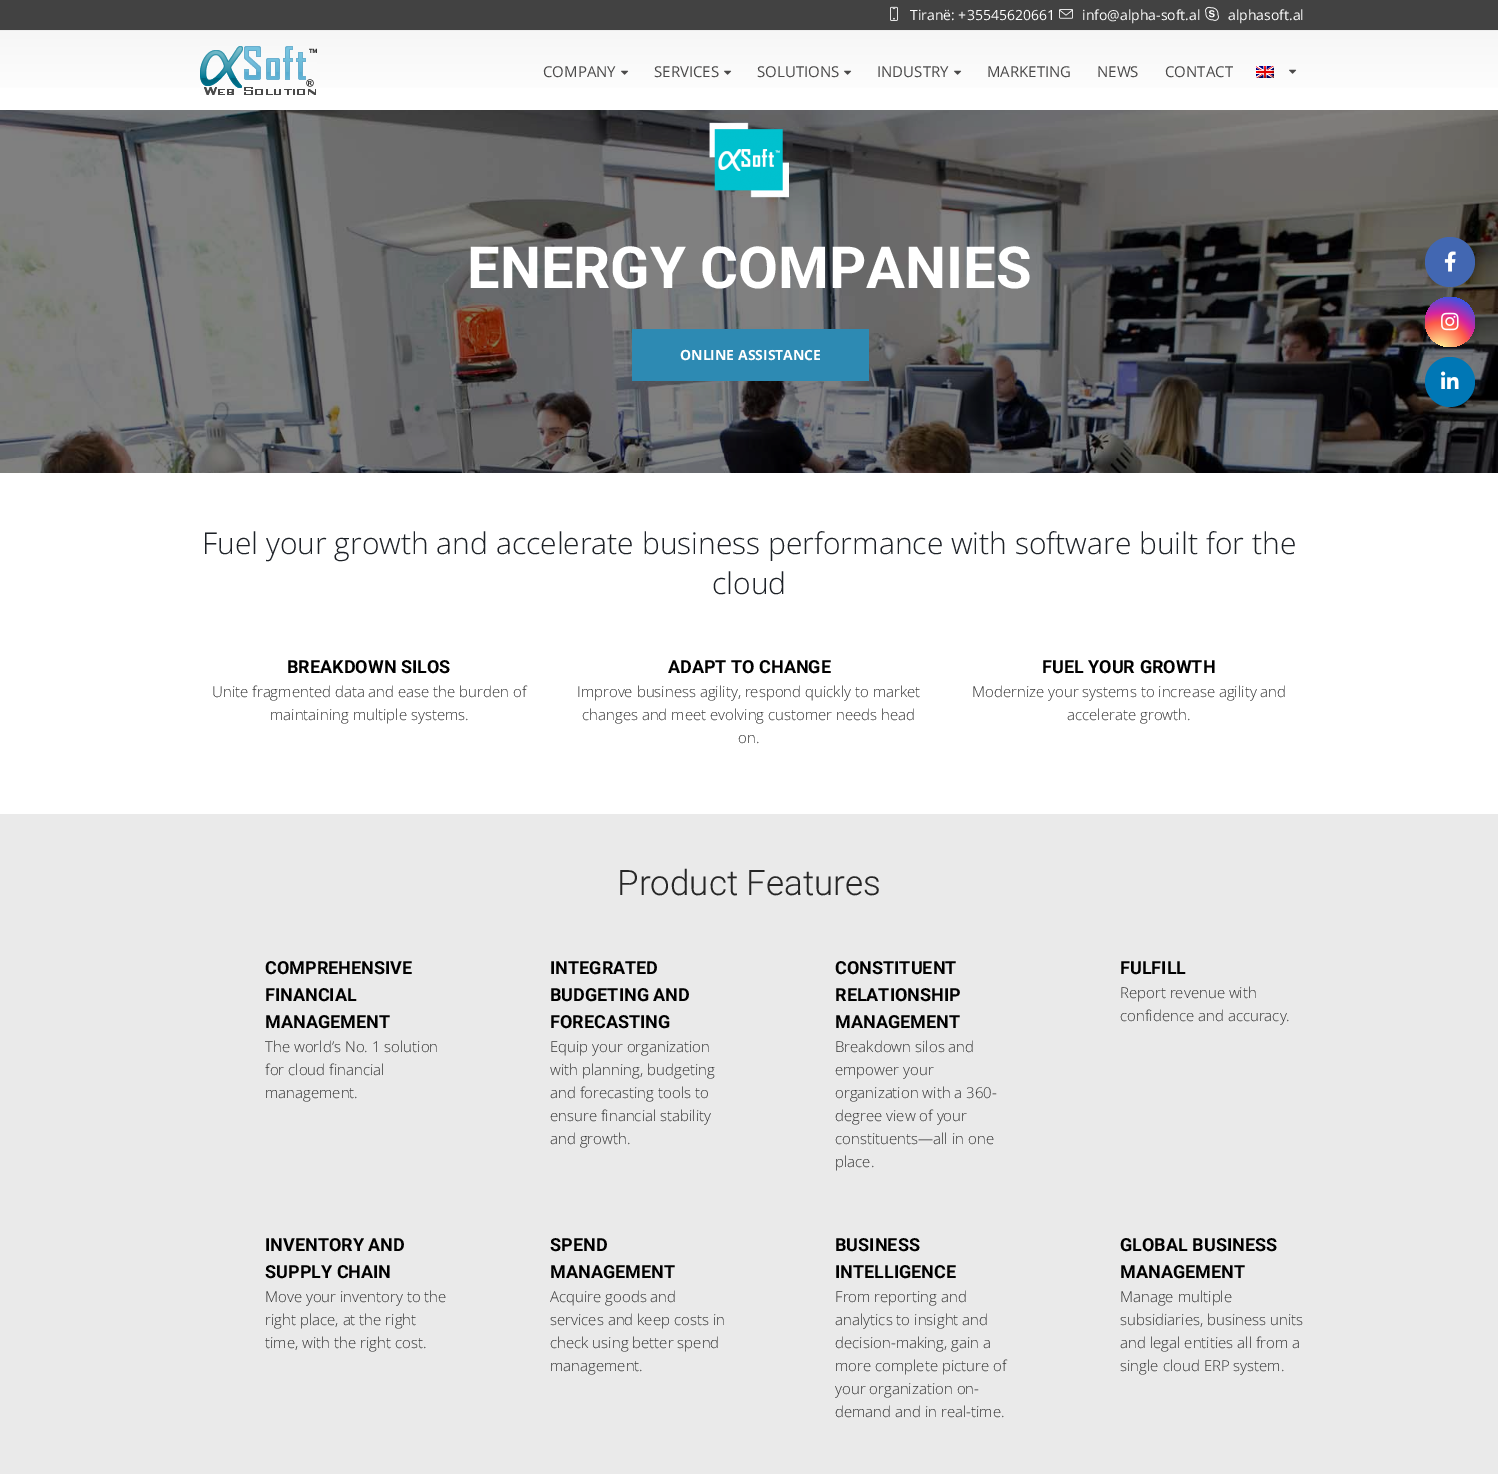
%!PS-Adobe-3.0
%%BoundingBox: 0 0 1498 1474
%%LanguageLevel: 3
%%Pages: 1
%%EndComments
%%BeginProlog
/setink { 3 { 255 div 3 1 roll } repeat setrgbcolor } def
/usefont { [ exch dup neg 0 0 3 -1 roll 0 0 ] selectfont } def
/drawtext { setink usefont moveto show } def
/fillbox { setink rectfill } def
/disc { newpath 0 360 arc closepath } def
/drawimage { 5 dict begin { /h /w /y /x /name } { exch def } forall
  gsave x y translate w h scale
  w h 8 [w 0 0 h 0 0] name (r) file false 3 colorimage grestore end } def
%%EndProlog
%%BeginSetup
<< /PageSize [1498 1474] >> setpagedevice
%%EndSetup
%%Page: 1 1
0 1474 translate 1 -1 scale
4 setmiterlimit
0 0 1498 1474 255 255 255 fillbox
0 0 1498 30 66 66 66 fillbox
0 30 1498 1 237 237 237 fillbox
(assets/img1.rgb) 890 6 8 15 drawimage
(Tiranë: +35545620661) 910 20 /OpenSans-Regular 14 255 255 255 drawtext
(assets/img2.rgb) 1059 9 14 10 drawimage
(info@alpha-soft.al) 1082 20 /OpenSans-Regular 14 255 255 255 drawtext
(assets/img3.rgb) 1205 6 14 15 drawimage
(alphasoft.al) 1228 20 /OpenSans-Regular 14 255 255 255 drawtext
gsave 0 31 moveto 1498 31 lineto 1498 88 lineto 0 88 lineto closepath clip newpath
<< /ShadingType 2 /ColorSpace /DeviceRGB /Coords [749 31 749 110] /Extend [true true] /Function << /FunctionType 2 /Domain [0 1] /C0 [0.965 0.965 0.965] /C1 [1 1 1] /N 1 >> >> shfill grestore
(assets/img4.rgb) 200 46 117 49 drawimage
(COMPANY) 543 77 /OpenSans-Regular 15 74 73 73 drawtext
(assets/img5.rgb) 621 70 8 5 drawimage
(SERVICES) 654 77 /OpenSans-Regular 15 74 73 73 drawtext
(assets/img5.rgb) 724 70 8 5 drawimage
(SOLUTIONS) 757 77 /OpenSans-Regular 15 74 73 73 drawtext
(assets/img5.rgb) 844 70 8 5 drawimage
(INDUSTRY) 877 77 /OpenSans-Regular 15 74 73 73 drawtext
(assets/img5.rgb) 954 70 8 5 drawimage
(MARKETING) 987 77 /OpenSans-Regular 15 74 73 73 drawtext
(NEWS) 1097 77 /OpenSans-Regular 15 74 73 73 drawtext
(CONTACT) 1165 77 /OpenSans-Regular 15 74 73 73 drawtext
(assets/img6.rgb) 1256 66 18 12 drawimage
(assets/img7.rgb) 1289 69 8 5 drawimage
(assets/img8.rgb) 0 110 1498 363 drawimage
(assets/img9.rgb) 709 122 80 76 drawimage
(ENERGY COMPANIES) 467 288 /Roboto-Bold 58 255 255 255 drawtext
632 329 237 52 45 138 179 fillbox
(ONLINE ASSISTANCE) 680 360 /OpenSans-Bold 14 255 255 255 drawtext
(Fuel your growth and accelerate business performance with software built for the) 202 554 /OpenSans-Light 30 29 33 39 drawtext
(cloud) 712 594 /OpenSans-Light 30 29 33 39 drawtext
(BREAKDOWN SILOS) 287 673 /Roboto-Bold 18 0 0 0 drawtext
(Unite fragmented data and ease the burden of) 212 697 /OpenSans-Light 15 51 51 51 drawtext
(maintaining multiple systems.) 270 720 /OpenSans-Light 15 51 51 51 drawtext
(ADAPT TO CHANGE) 668 673 /Roboto-Bold 18 0 0 0 drawtext
(Improve business agility, respond quickly to market) 577 697 /OpenSans-Light 15 51 51 51 drawtext
(changes and meet evolving customer needs head) 582 720 /OpenSans-Light 15 51 51 51 drawtext
(on.) 738 743 /OpenSans-Light 15 51 51 51 drawtext
(FUEL YOUR GROWTH) 1042 673 /Roboto-Bold 18 0 0 0 drawtext
(Modernize your systems to increase agility and) 972 697 /OpenSans-Light 15 51 51 51 drawtext
(accelerate growth.) 1067 720 /OpenSans-Light 15 51 51 51 drawtext
0 814 1498 660 234 234 234 fillbox
(Product Features) 617 895 /Roboto-Light 35 38 38 38 drawtext
(COMPREHENSIVE) 265 974 /Roboto-Bold 18 0 0 0 drawtext
(FINANCIAL) 265 1001 /Roboto-Bold 18 0 0 0 drawtext
(MANAGEMENT) 265 1028 /Roboto-Bold 18 0 0 0 drawtext
(The world’s No. 1 solution) 265 1052 /OpenSans-Light 15 51 51 51 drawtext
(for cloud financial) 265 1075 /OpenSans-Light 15 51 51 51 drawtext
(management.) 265 1098 /OpenSans-Light 15 51 51 51 drawtext
(INTEGRATED) 550 974 /Roboto-Bold 18 0 0 0 drawtext
(BUDGETING AND) 550 1001 /Roboto-Bold 18 0 0 0 drawtext
(FORECASTING) 550 1028 /Roboto-Bold 18 0 0 0 drawtext
(Equip your organization) 550 1052 /OpenSans-Light 15 51 51 51 drawtext
(with planning, budgeting) 550 1075 /OpenSans-Light 15 51 51 51 drawtext
(and forecasting tools to) 550 1098 /OpenSans-Light 15 51 51 51 drawtext
(ensure financial stability) 550 1121 /OpenSans-Light 15 51 51 51 drawtext
(and growth.) 550 1144 /OpenSans-Light 15 51 51 51 drawtext
(CONSTITUENT) 835 974 /Roboto-Bold 18 0 0 0 drawtext
(RELATIONSHIP) 835 1001 /Roboto-Bold 18 0 0 0 drawtext
(MANAGEMENT) 835 1028 /Roboto-Bold 18 0 0 0 drawtext
(Breakdown silos and) 835 1052 /OpenSans-Light 15 51 51 51 drawtext
(empower your) 835 1075 /OpenSans-Light 15 51 51 51 drawtext
(organization with a 360-) 835 1098 /OpenSans-Light 15 51 51 51 drawtext
(degree view of your) 835 1121 /OpenSans-Light 15 51 51 51 drawtext
(constituents—all in one) 835 1144 /OpenSans-Light 15 51 51 51 drawtext
(place.) 835 1167 /OpenSans-Light 15 51 51 51 drawtext
(FULFILL) 1120 974 /Roboto-Bold 18 0 0 0 drawtext
(Report revenue with) 1120 998 /OpenSans-Light 15 51 51 51 drawtext
(confidence and accuracy.) 1120 1021 /OpenSans-Light 15 51 51 51 drawtext
(INVENTORY AND) 265 1251 /Roboto-Bold 18 0 0 0 drawtext
(SUPPLY CHAIN) 265 1278 /Roboto-Bold 18 0 0 0 drawtext
(Move your inventory to the) 265 1302 /OpenSans-Light 15 51 51 51 drawtext
(right place, at the right) 265 1325 /OpenSans-Light 15 51 51 51 drawtext
(time, with the right cost.) 265 1348 /OpenSans-Light 15 51 51 51 drawtext
(SPEND) 550 1251 /Roboto-Bold 18 0 0 0 drawtext
(MANAGEMENT) 550 1278 /Roboto-Bold 18 0 0 0 drawtext
(Acquire goods and) 550 1302 /OpenSans-Light 15 51 51 51 drawtext
(services and keep costs in) 550 1325 /OpenSans-Light 15 51 51 51 drawtext
(check using better spend) 550 1348 /OpenSans-Light 15 51 51 51 drawtext
(management.) 550 1371 /OpenSans-Light 15 51 51 51 drawtext
(BUSINESS) 835 1251 /Roboto-Bold 18 0 0 0 drawtext
(INTELLIGENCE) 835 1278 /Roboto-Bold 18 0 0 0 drawtext
(From reporting and) 835 1302 /OpenSans-Light 15 51 51 51 drawtext
(analytics to insight and) 835 1325 /OpenSans-Light 15 51 51 51 drawtext
(decision-making, gain a) 835 1348 /OpenSans-Light 15 51 51 51 drawtext
(more complete picture of) 835 1371 /OpenSans-Light 15 51 51 51 drawtext
(your organization on-) 835 1394 /OpenSans-Light 15 51 51 51 drawtext
(demand and in real-time.) 835 1417 /OpenSans-Light 15 51 51 51 drawtext
(GLOBAL BUSINESS) 1120 1251 /Roboto-Bold 18 0 0 0 drawtext
(MANAGEMENT) 1120 1278 /Roboto-Bold 18 0 0 0 drawtext
(Manage multiple) 1120 1302 /OpenSans-Light 15 51 51 51 drawtext
(subsidiaries, business units) 1120 1325 /OpenSans-Light 15 51 51 51 drawtext
(and legal entities all from a) 1120 1348 /OpenSans-Light 15 51 51 51 drawtext
(single cloud ERP system.) 1120 1371 /OpenSans-Light 15 51 51 51 drawtext
66 103 178 setink
1450 262 25 disc fill
(assets/img10.rgb) 1444 251 12 21 drawimage
gsave 1450 322 25 disc clip newpath 1440 351 translate 64 64 scale
<< /ShadingType 3 /ColorSpace /DeviceRGB /Coords [0 0 0 0 0 1] /Extend [true true] /Function << /FunctionType 3 /Domain [0 1] /Functions [<< /FunctionType 2 /Domain [0 1] /C0 [0.992 0.957 0.592] /C1 [0.992 0.957 0.592] /N 1 >> << /FunctionType 2 /Domain [0 1] /C0 [0.992 0.957 0.592] /C1 [0.992 0.349 0.286] /N 1 >> << /FunctionType 2 /Domain [0 1] /C0 [0.992 0.349 0.286] /C1 [0.839 0.141 0.624] /N 1 >> << /FunctionType 2 /Domain [0 1] /C0 [0.839 0.141 0.624] /C1 [0.157 0.353 0.922] /N 1 >> << /FunctionType 2 /Domain [0 1] /C0 [0.157 0.353 0.922] /C1 [0.157 0.353 0.922] /N 1 >>] /Bounds [0.05 0.45 0.6 0.9] /Encode [0 1 0 1 0 1 0 1 0 1] >> >> shfill grestore
(assets/img11.rgb) 1441 312 18 19 drawimage
0 119 181 setink
1450 382 25 disc fill
(assets/img12.rgb) 1441 371 18 18 drawimage
showpage
%%EOF
